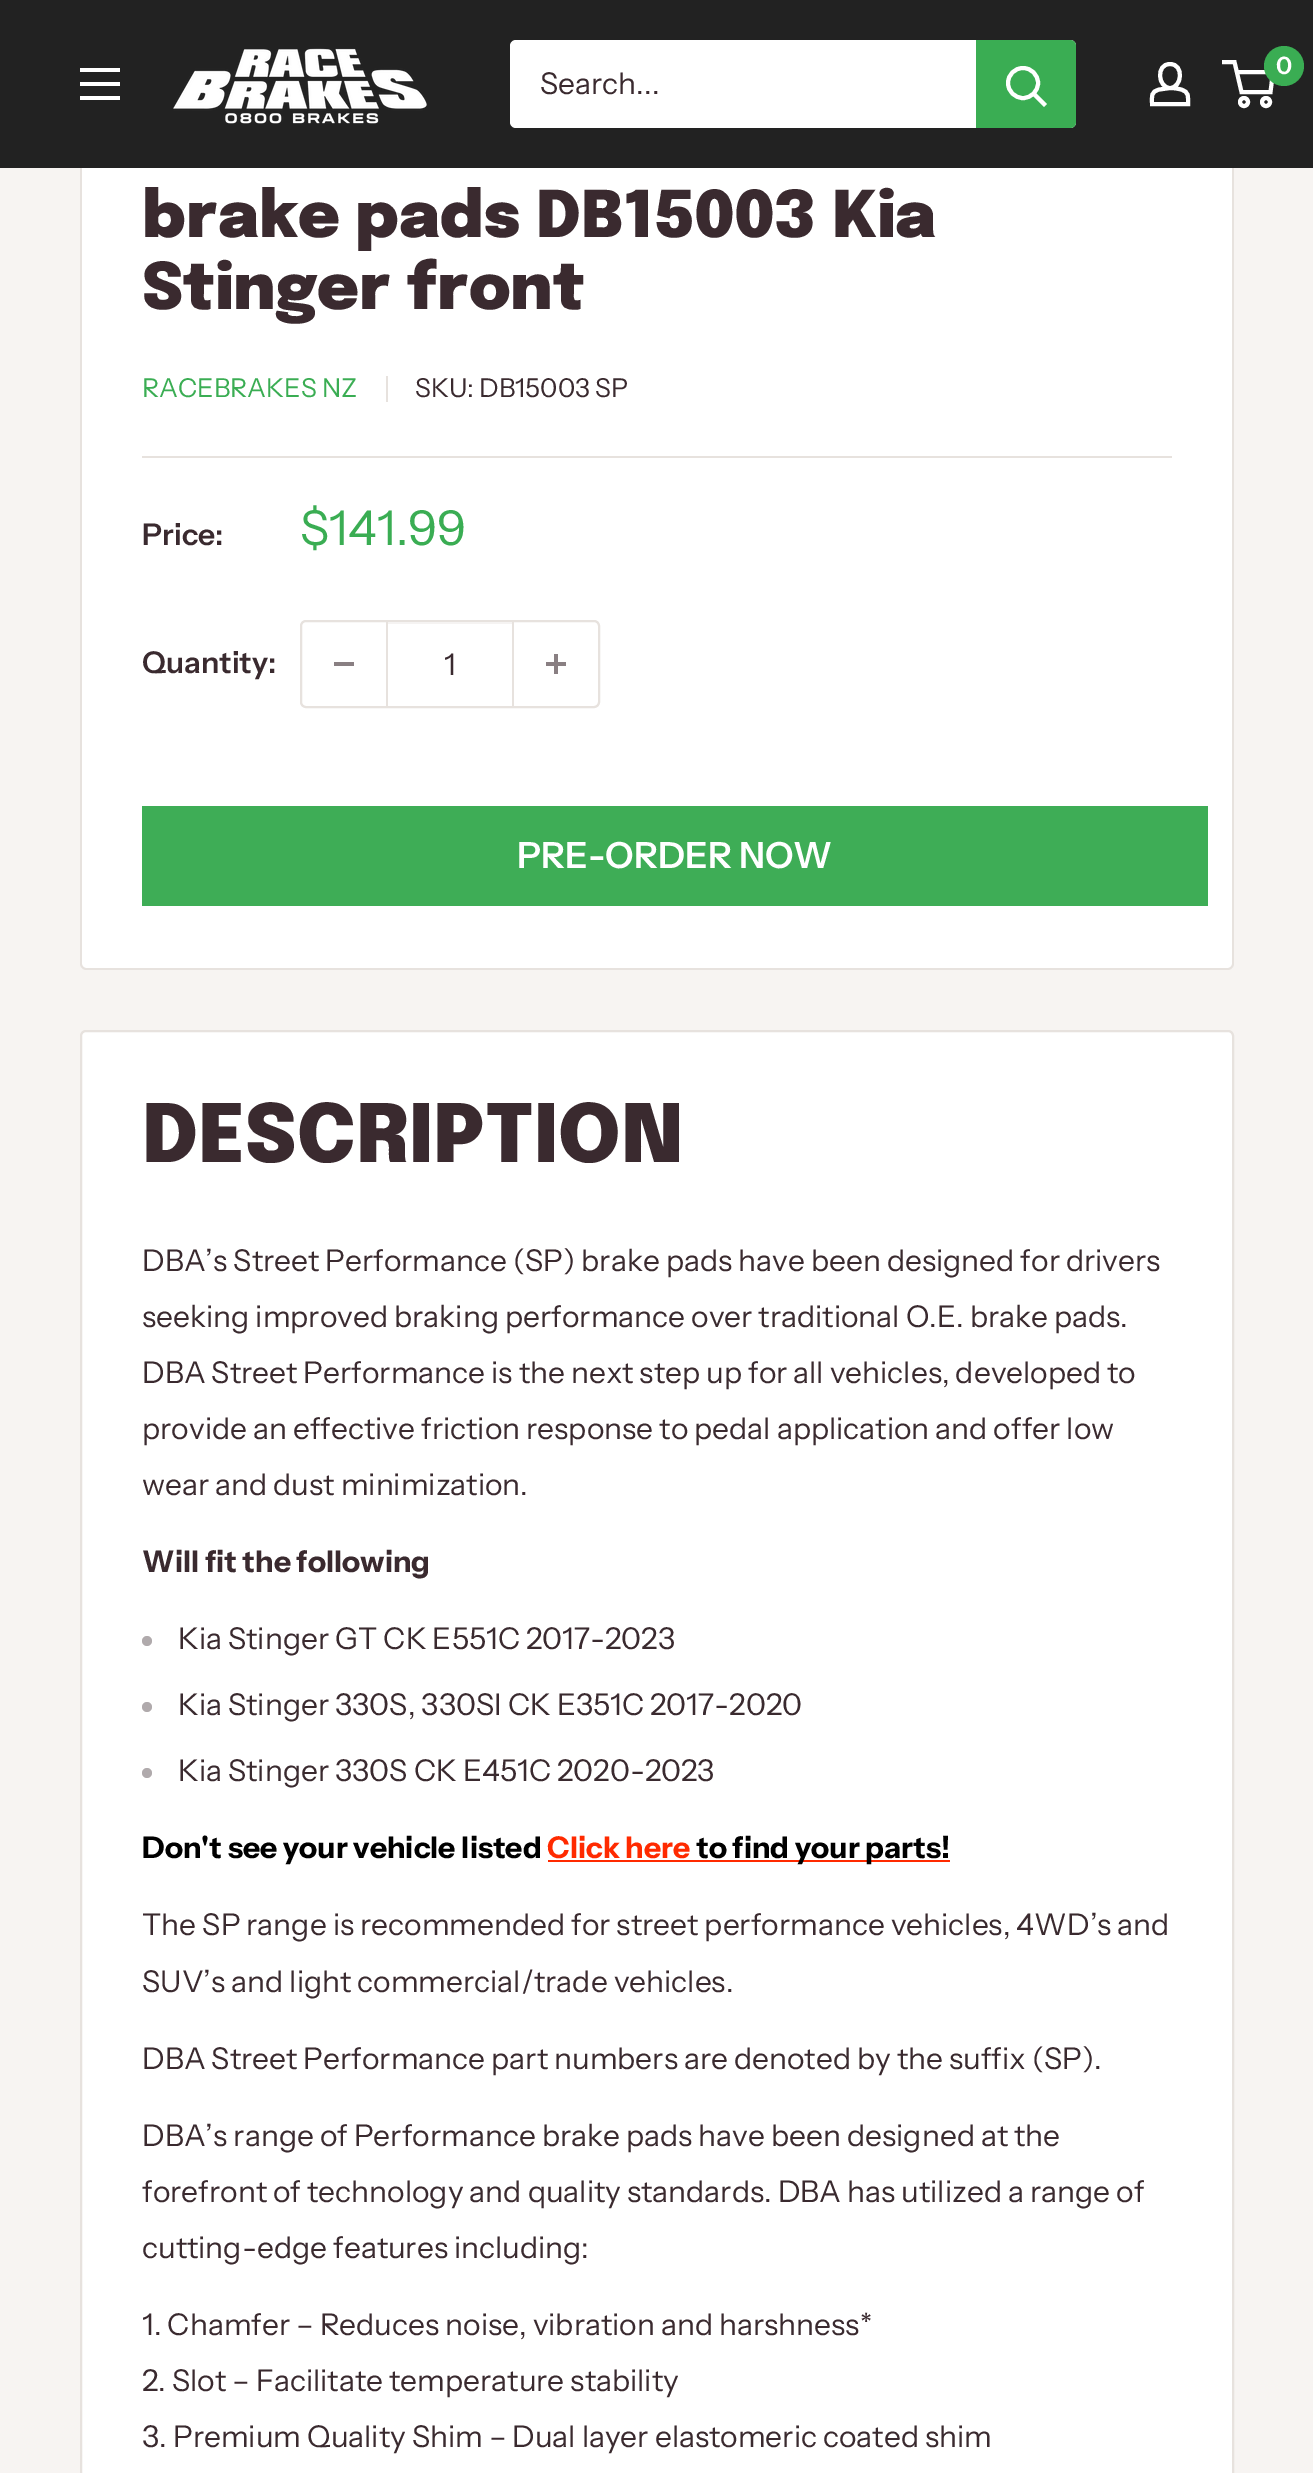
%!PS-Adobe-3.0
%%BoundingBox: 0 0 1313 2473
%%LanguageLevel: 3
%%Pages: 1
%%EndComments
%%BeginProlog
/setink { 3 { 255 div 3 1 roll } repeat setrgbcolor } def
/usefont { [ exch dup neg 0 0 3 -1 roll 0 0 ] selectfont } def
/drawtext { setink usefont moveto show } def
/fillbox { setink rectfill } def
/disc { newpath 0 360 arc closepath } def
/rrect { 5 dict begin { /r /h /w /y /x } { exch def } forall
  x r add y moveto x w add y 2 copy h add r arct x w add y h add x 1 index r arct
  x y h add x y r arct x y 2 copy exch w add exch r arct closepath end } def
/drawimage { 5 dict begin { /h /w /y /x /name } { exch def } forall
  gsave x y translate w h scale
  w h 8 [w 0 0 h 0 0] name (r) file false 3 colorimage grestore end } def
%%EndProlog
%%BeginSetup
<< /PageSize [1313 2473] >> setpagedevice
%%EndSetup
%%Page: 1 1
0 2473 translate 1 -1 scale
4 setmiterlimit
0 0 1313 2473 247 244 242 fillbox
255 255 255 setink
80 112 1154 858 6 rrect fill
231 226 222 setink
86 112 moveto 1228 112 lineto 1231 112 1234 115 1234 118 curveto 1234 964 lineto 1234 967 1231 970 1228 970 curveto 86 970 lineto 83 970 80 967 80 964 curveto 80 118 lineto 80 115 83 112 86 112 curveto closepath 86 112 moveto 1228 112 lineto 1230 112 1232 115 1232 118 curveto 1232 964 lineto 1232 966 1230 968 1228 968 curveto 86 968 lineto 84 968 82 966 82 964 curveto 82 118 lineto 82 115 84 112 86 112 curveto closepath eofill
0 0 1313 168 34 34 34 fillbox
(assets/img1.rgb) 173 48 254 76 drawimage
255 255 255 setink
4 setlinewidth
1170 88 moveto 1174 88 1177.5 88.5 1181 89.5 curveto 1189.5 92 1188 96.5 1188 104 curveto 1152 104 lineto 1152 96 1150.5 91.5 1159.5 89.5 curveto closepath 1170 88 moveto 1158 88 1155.5 64 1170 64 curveto 1184.5 64 1182 88 1170 88 curveto closepath stroke
1244 102 4 disc stroke
1266 102 4 disc stroke
1236.5 72 moveto 1273 72 lineto 1270.5 92 lineto 1241.5 92 lineto 1234.5 62 lineto 1222 62 lineto stroke
58 173 83 setink
1284 66 20 disc fill
(0) 1276 74 /InstrumentSans-SemiBold 24 255 255 255 drawtext
80 96 moveto 120 96 lineto 120 100 lineto 80 100 lineto closepath 80 68 moveto 120 68 lineto 120 72 lineto 80 72 lineto closepath 80 82 moveto 120 82 lineto 120 86 lineto 80 86 lineto closepath eofill
510 40 566 88 6 rrect fill
(Search...) 540 94 /InstrumentSans-Regular 30 58 42 47 drawtext
58 173 83 setink
976 40 moveto 1070 40 lineto 1073.5 40 1076 42.5 1076 46 curveto 1076 122 lineto 1076 125.5 1073.5 128 1070 128 curveto 976 128 lineto closepath fill
255 255 255 setink
2 setlinecap
1044 104 moveto 1034 94 lineto stroke
0 setlinecap
1023 83 15 disc stroke
(brake pads DB15003 Kia) 142 237 /Epilogue-Black 64 58 42 47 drawtext
(Stinger front) 142 309 /Epilogue-Black 64 58 42 47 drawtext
(RACEBRAKES NZ) 142 397 /InstrumentSans-Regular 26 58 173 83 drawtext
386 376 2 26 231 226 222 fillbox
(SKU: DB15003 SP) 415 397 /InstrumentSans-Regular 26 58 42 47 drawtext
142 456 1030 2 231 226 222 fillbox
(Price:) 142 545 /InstrumentSans-SemiBold 30 58 42 47 drawtext
($141.99) 300 545 /InstrumentSans-Regular 48 58 173 83 drawtext
(Quantity:) 142 673 /InstrumentSans-SemiBold 30 58 42 47 drawtext
231 226 222 setink
2 setlinewidth
301 621 298 86 5 rrect stroke
334 662 20 4 137 127 130 fillbox
388 622 124 2 245 243 242 fillbox
512 622 2 84 231 226 222 fillbox
386 622 2 84 231 226 222 fillbox
(1) 444 675 /InstrumentSans-Regular 30 58 42 47 drawtext
(assets/img2.rgb) 546 654 20 20 drawimage
142 806 1066 100 62 173 86 fillbox
(PRE-ORDER NOW) 517 868 /InstrumentSans-SemiBold 36 255 255 255 drawtext
81 1031 1152 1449 5 rrect gsave fill grestore
231 226 222 setink
stroke
(DESCRIPTION) 142 1162 /Epilogue-Black 80 58 42 47 drawtext
(DBA’s Street Performance \(SP\) brake pads have been designed for drivers) 142 1271 /InstrumentSans-Regular 30 58 42 47 drawtext
(seeking improved braking performance over traditional O.E. brake pads.) 142 1327 /InstrumentSans-Regular 30 58 42 47 drawtext
(DBA Street Performance is the next step up for all vehicles, developed to) 142 1383 /InstrumentSans-Regular 30 58 42 47 drawtext
(provide an effective friction response to pedal application and offer low) 142 1439 /InstrumentSans-Regular 30 58 42 47 drawtext
(wear and dust minimization.) 142 1495 /InstrumentSans-Regular 30 58 42 47 drawtext
(Will fit the following) 142 1572 /InstrumentSans-Bold 30 58 42 47 drawtext
176 170 172 setink
147 1641 5 disc fill
(Kia Stinger GT CK E551C 2017-2023) 178 1649 /InstrumentSans-Regular 30 58 42 47 drawtext
176 170 172 setink
147 1707 5 disc fill
(Kia Stinger 330S, 330SI CK E351C 2017-2020) 178 1715 /InstrumentSans-Regular 30 58 42 47 drawtext
176 170 172 setink
147 1773 5 disc fill
(Kia Stinger 330S CK E451C 2020-2023) 178 1781 /InstrumentSans-Regular 30 58 42 47 drawtext
(Don't see your vehicle listed) 142 1858 /InstrumentSans-Bold 30 0 0 0 drawtext
(Click here) 547 1858 /InstrumentSans-Bold 30 255 42 0 drawtext
548 1860 402 2 255 42 0 fillbox
(to find your parts!) 696 1858 /InstrumentSans-Bold 30 0 0 0 drawtext
(The SP range is recommended for street performance vehicles, 4WD’s and) 142 1935 /InstrumentSans-Regular 30 58 42 47 drawtext
(SUV’s and light commercial/trade vehicles.) 142 1992 /InstrumentSans-Regular 30 58 42 47 drawtext
(DBA Street Performance part numbers are denoted by the suffix \(SP\).) 142 2069 /InstrumentSans-Regular 30 58 42 47 drawtext
(DBA’s range of Performance brake pads have been designed at the) 142 2146 /InstrumentSans-Regular 30 58 42 47 drawtext
(forefront of technology and quality standards. DBA has utilized a range of) 142 2202 /InstrumentSans-Regular 30 58 42 47 drawtext
(cutting-edge features including:) 142 2258 /InstrumentSans-Regular 30 58 42 47 drawtext
(1. Chamfer – Reduces noise, vibration and harshness*) 142 2335 /InstrumentSans-Regular 30 58 42 47 drawtext
(2. Slot – Facilitate temperature stability) 142 2391 /InstrumentSans-Regular 30 58 42 47 drawtext
(3. Premium Quality Shim – Dual layer elastomeric coated shim) 142 2447 /InstrumentSans-Regular 30 58 42 47 drawtext
showpage
%%EOF
